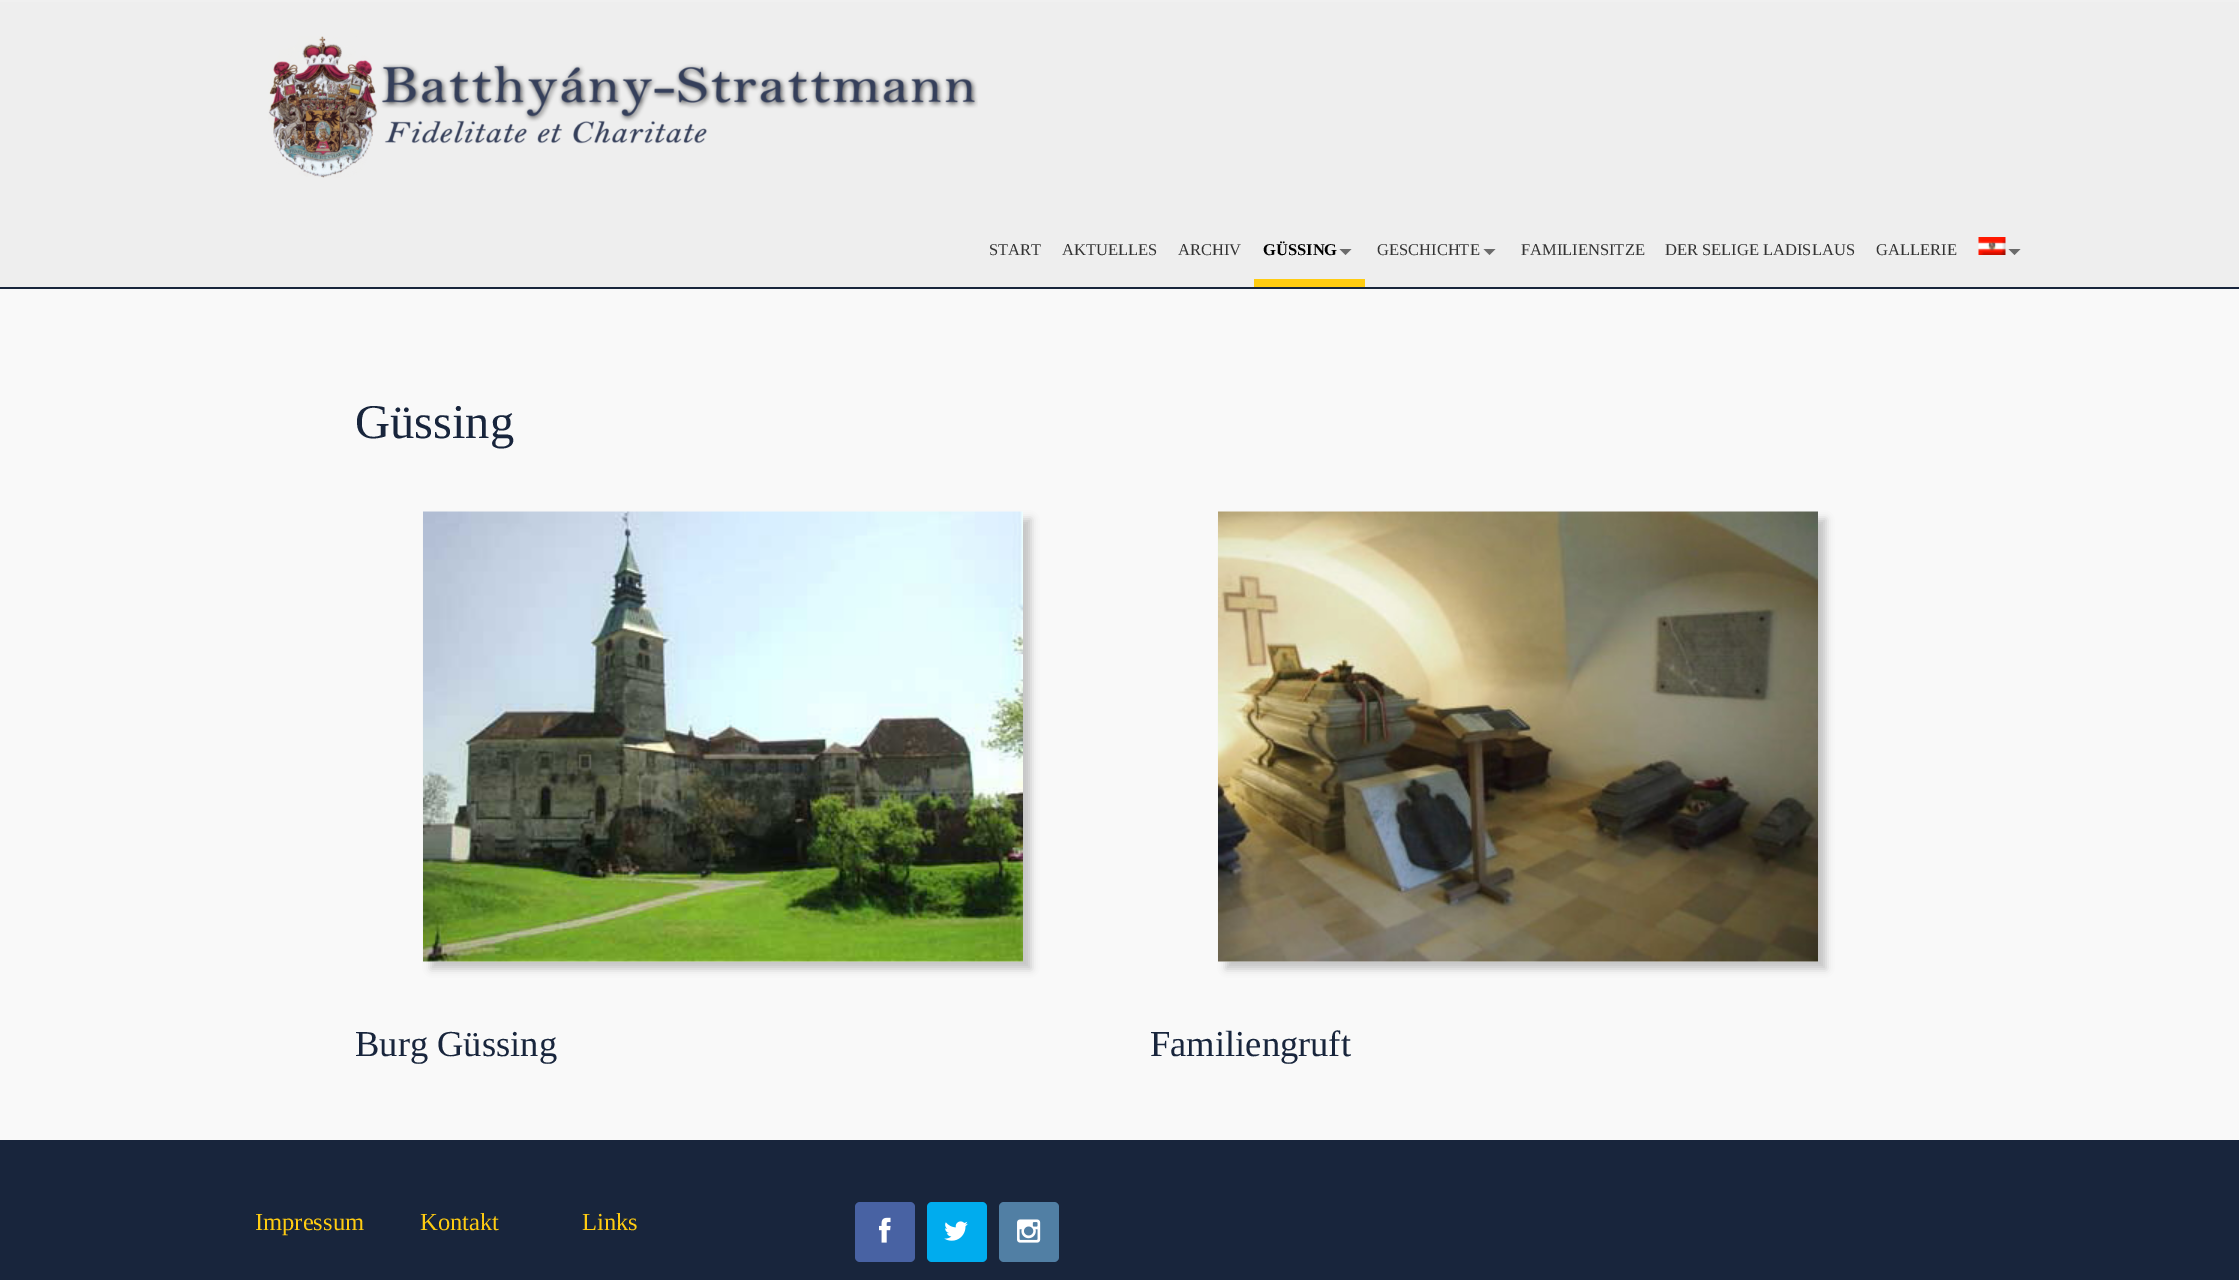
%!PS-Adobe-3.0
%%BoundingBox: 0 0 2239 1280
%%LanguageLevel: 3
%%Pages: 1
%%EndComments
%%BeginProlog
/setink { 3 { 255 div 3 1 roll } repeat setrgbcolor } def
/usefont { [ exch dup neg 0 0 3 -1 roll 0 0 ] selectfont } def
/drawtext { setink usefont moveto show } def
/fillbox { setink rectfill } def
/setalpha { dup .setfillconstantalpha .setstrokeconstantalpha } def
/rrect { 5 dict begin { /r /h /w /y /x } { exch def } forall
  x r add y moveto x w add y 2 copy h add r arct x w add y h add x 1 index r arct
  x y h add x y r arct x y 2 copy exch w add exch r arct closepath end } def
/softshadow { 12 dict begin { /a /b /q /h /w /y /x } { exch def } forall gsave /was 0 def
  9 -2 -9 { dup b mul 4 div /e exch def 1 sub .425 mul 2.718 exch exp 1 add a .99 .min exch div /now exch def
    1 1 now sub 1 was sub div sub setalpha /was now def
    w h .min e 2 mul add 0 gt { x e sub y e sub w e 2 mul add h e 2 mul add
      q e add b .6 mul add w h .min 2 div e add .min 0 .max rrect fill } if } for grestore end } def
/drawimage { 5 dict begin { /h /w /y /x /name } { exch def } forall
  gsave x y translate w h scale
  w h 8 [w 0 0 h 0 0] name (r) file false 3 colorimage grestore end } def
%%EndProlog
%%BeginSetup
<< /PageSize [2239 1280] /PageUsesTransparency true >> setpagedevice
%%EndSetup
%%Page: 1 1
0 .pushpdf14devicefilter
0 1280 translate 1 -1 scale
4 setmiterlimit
0 0 2239 1280 24 37 60 fillbox
0 0 2239 2 240 240 240 fillbox
0 2 2239 285 238 238 238 fillbox
(assets/img1.rgb) 268 36 710 142 drawimage
(START) 989 255 /LiberationSerif-Regular 16.5 51 51 51 drawtext
(AKTUELLES) 1062 255 /LiberationSerif-Regular 16.5 51 51 51 drawtext
(ARCHIV) 1178 255 /LiberationSerif-Regular 16.5 51 51 51 drawtext
1254 279 111 8 255 204 17 fillbox
(GÜSSING) 1263 255 /LiberationSerif-Bold 16.5 0 0 0 drawtext
107 107 107 setink
1339.5 249 moveto 1351.5 249 lineto 1345.5 255 lineto closepath fill
(GESCHICHTE) 1377 255 /LiberationSerif-Regular 16.5 51 51 51 drawtext
107 107 107 setink
1483.5 249 moveto 1495.5 249 lineto 1489.5 255 lineto closepath fill
(FAMILIENSITZE) 1521 255 /LiberationSerif-Regular 16.5 51 51 51 drawtext
(DER SELIGE LADISLAUS) 1665 255 /LiberationSerif-Regular 16.5 51 51 51 drawtext
(GALLERIE) 1876 255 /LiberationSerif-Regular 16.5 51 51 51 drawtext
(assets/img2.rgb) 1978 237 28 18 drawimage
107 107 107 setink
2008.5 249 moveto 2020.5 249 lineto 2014.5 255 lineto closepath fill
0 289 2239 851 249 249 249 fillbox
(Güssing) 355 438 /LiberationSerif-Regular 48.5 24 37 60 drawtext
0 0 0 setink
431 519 600 450 0 4 0.2 softshadow
(assets/img3.rgb) 423 511 600 451 drawimage
(Burg Güssing) 355 1056 /LiberationSerif-Regular 36.5 24 37 60 drawtext
0 0 0 setink
1226 519 600 450 0 4 0.2 softshadow
(assets/img4.rgb) 1218 511 600 451 drawimage
(Familiengruft) 1150 1056 /LiberationSerif-Regular 36.5 24 37 60 drawtext
(Impressum) 255 1230 /LiberationSerif-Regular 24.5 255 204 17 drawtext
(Kontakt) 420 1230 /LiberationSerif-Regular 24.5 255 204 17 drawtext
(Links) 582 1230 /LiberationSerif-Regular 24.5 255 204 17 drawtext
72 98 163 setink
855 1202 60 60 5 rrect fill
(assets/img5.rgb) 879 1217 12 26 drawimage
0 172 238 setink
927 1202 60 60 5 rrect fill
(assets/img6.rgb) 944 1221 24 20 drawimage
81 127 164 setink
999 1202 60 60 5 rrect fill
(assets/img7.rgb) 1017 1219 24 24 drawimage
.poppdf14devicefilter showpage
%%EOF
